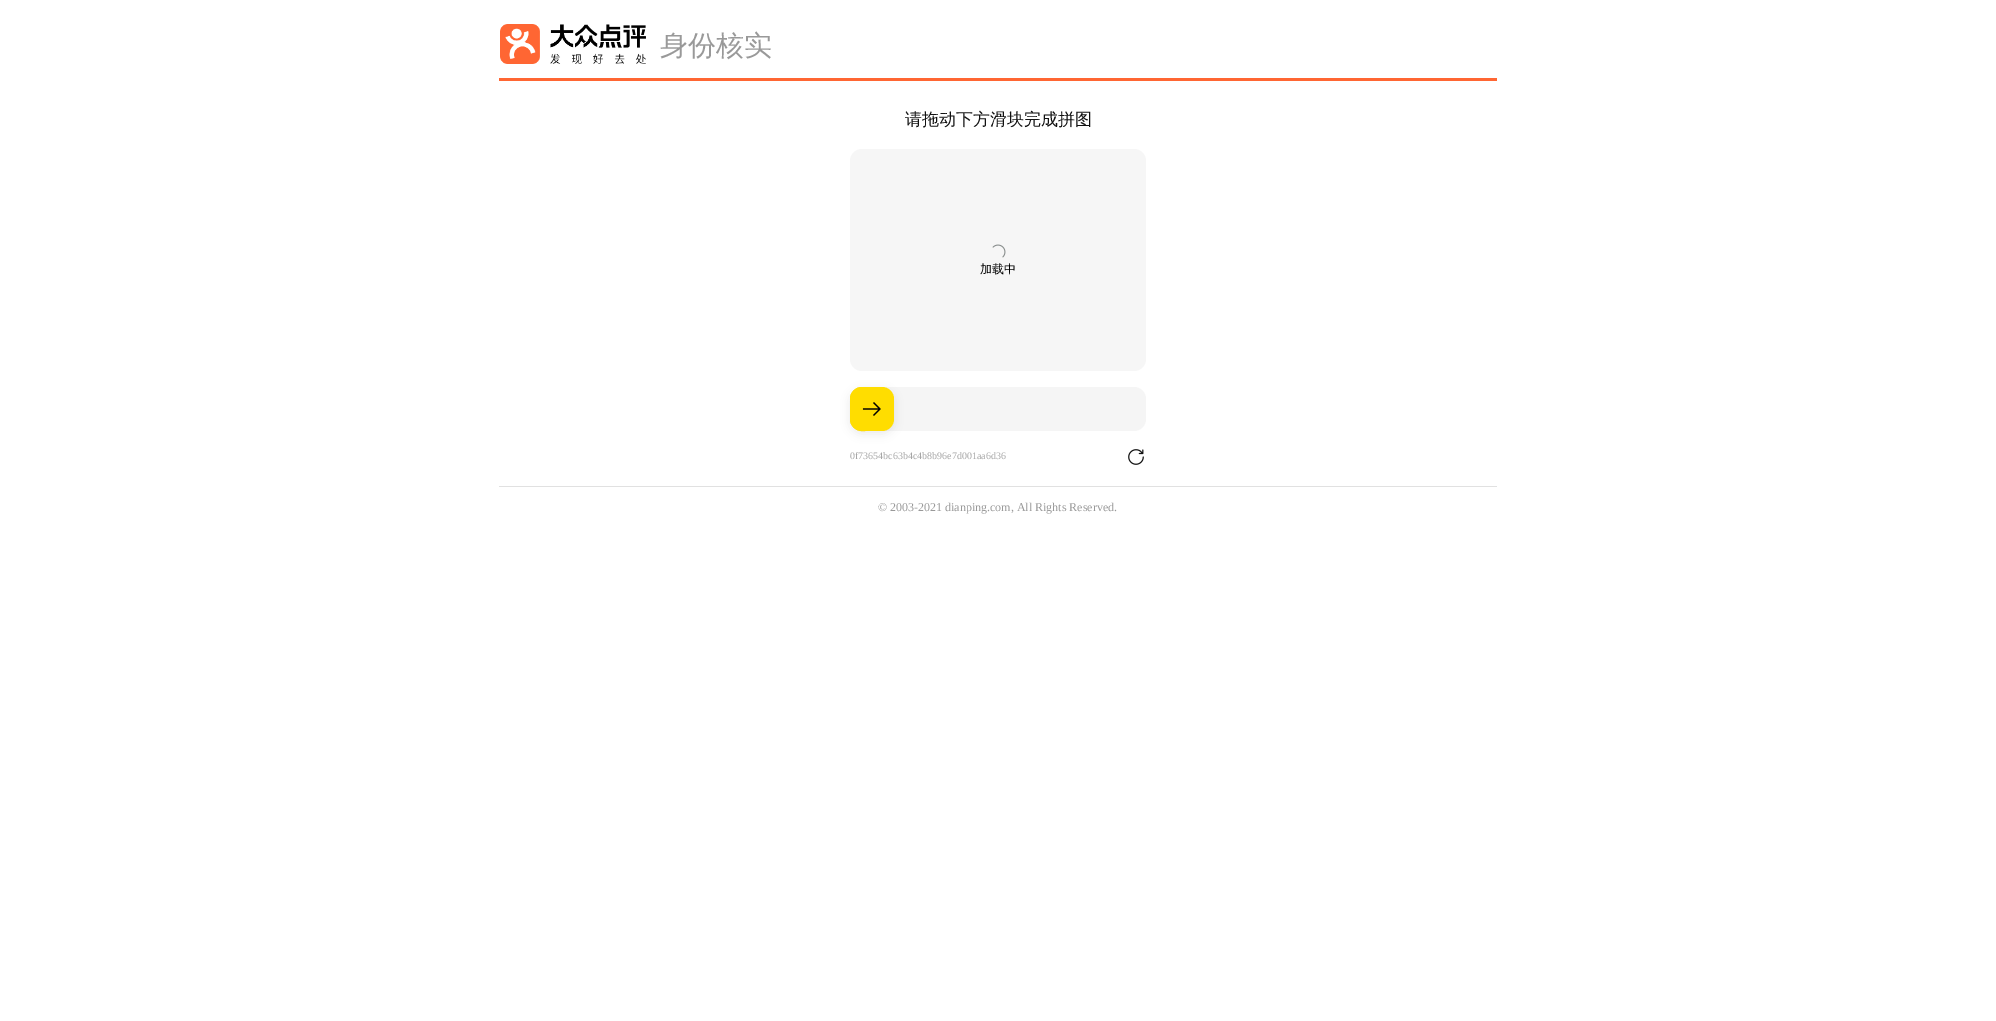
%!PS-Adobe-3.0
%%BoundingBox: 0 0 1996 1021
%%LanguageLevel: 3
%%Pages: 1
%%EndComments
%%BeginProlog
/setink { 3 { 255 div 3 1 roll } repeat setrgbcolor } def
/usefont { [ exch dup neg 0 0 3 -1 roll 0 0 ] selectfont } def
/drawtext { setink usefont moveto show } def
/fillbox { setink rectfill } def
/setalpha { dup .setfillconstantalpha .setstrokeconstantalpha } def
/rrect { 5 dict begin { /r /h /w /y /x } { exch def } forall
  x r add y moveto x w add y 2 copy h add r arct x w add y h add x 1 index r arct
  x y h add x y r arct x y 2 copy exch w add exch r arct closepath end } def
/softshadow { 12 dict begin { /a /b /q /h /w /y /x } { exch def } forall gsave /was 0 def
  9 -2 -9 { dup b mul 4 div /e exch def 1 sub .425 mul 2.718 exch exp 1 add a .99 .min exch div /now exch def
    1 1 now sub 1 was sub div sub setalpha /was now def
    w h .min e 2 mul add 0 gt { x e sub y e sub w e 2 mul add h e 2 mul add
      q e add b .6 mul add w h .min 2 div e add .min 0 .max rrect fill } if } for grestore end } def
/drawimage { 5 dict begin { /h /w /y /x /name } { exch def } forall
  gsave x y translate w h scale
  w h 8 [w 0 0 h 0 0] name (r) file false 3 colorimage grestore end } def
%%EndProlog
%%BeginSetup
<< /PageSize [1996 1021] /PageUsesTransparency true >> setpagedevice
%%EndSetup
%%Page: 1 1
0 .pushpdf14devicefilter
0 1021 translate 1 -1 scale
4 setmiterlimit
0 0 1996 1021 255 255 255 fillbox
499 78 998 3 255 102 51 fillbox
(assets/img1.rgb) 500 24 146 40 drawimage
(身份核实) 660 55 /WenQuanYiZenHei-Medium 28 153 153 153 drawtext
(请拖动下方滑块完成拼图) 905 125 /WenQuanYiZenHei-Medium 17 17 17 17 drawtext
246 246 246 setink
850 149 296 222 12 rrect fill
(assets/img2.rgb) 992 244 14 14 drawimage
(加载中) 980 273 /WenQuanYiZenHei-Medium 12 0 0 0 drawtext
245 245 245 setink
850 387 296 44 12 rrect fill
255 221 0 setink
850.5 387.5 25 43 11.5 rrect stroke
0 0 0 setink
850 390 44 44 12 4.5 0.08 softshadow
255 221 0 setink
850 387 44 44 12 rrect fill
(assets/img3.rgb) 862 402 19 14 drawimage
(0f73654bc63b4c4b8b96e7d001aa6d36) 850 459 /LiberationSerif-Regular 10 166 166 166 drawtext
(assets/img4.rgb) 1128 449 16 16 drawimage
499 486 998 1 225 225 225 fillbox
(© 2003-2021 dianping.com, All Rights Reserved.) 878 511 /LiberationSerif-Regular 12 153 153 153 drawtext
.poppdf14devicefilter showpage
%%EOF
